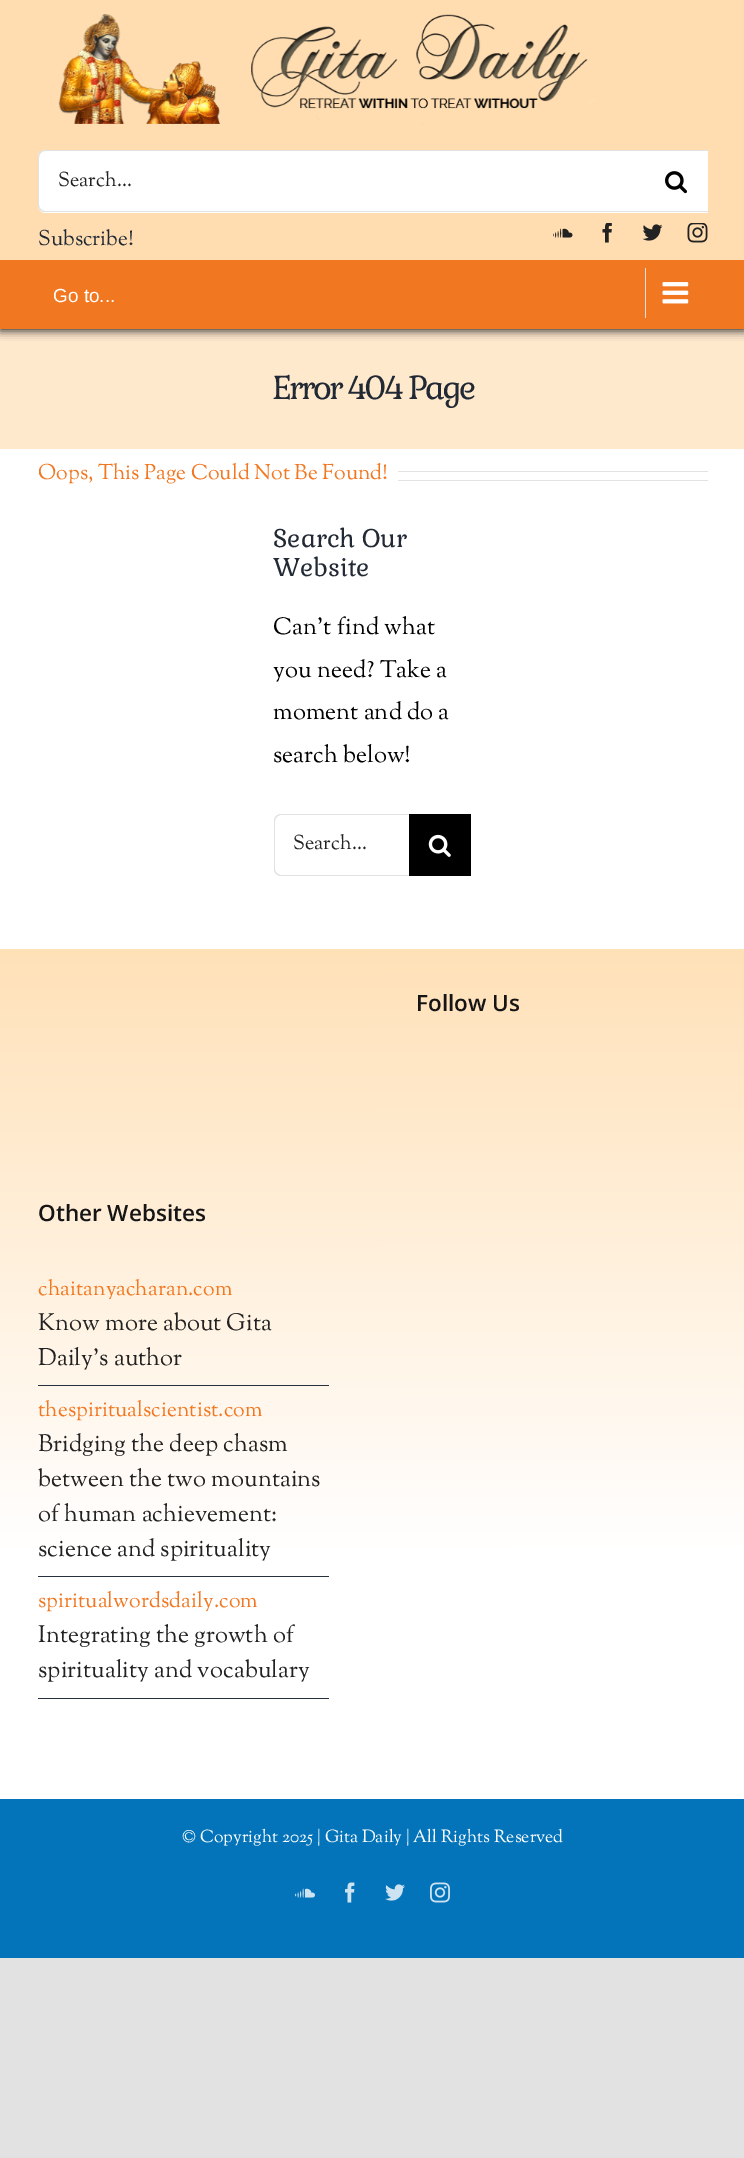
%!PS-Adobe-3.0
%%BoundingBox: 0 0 744 2158
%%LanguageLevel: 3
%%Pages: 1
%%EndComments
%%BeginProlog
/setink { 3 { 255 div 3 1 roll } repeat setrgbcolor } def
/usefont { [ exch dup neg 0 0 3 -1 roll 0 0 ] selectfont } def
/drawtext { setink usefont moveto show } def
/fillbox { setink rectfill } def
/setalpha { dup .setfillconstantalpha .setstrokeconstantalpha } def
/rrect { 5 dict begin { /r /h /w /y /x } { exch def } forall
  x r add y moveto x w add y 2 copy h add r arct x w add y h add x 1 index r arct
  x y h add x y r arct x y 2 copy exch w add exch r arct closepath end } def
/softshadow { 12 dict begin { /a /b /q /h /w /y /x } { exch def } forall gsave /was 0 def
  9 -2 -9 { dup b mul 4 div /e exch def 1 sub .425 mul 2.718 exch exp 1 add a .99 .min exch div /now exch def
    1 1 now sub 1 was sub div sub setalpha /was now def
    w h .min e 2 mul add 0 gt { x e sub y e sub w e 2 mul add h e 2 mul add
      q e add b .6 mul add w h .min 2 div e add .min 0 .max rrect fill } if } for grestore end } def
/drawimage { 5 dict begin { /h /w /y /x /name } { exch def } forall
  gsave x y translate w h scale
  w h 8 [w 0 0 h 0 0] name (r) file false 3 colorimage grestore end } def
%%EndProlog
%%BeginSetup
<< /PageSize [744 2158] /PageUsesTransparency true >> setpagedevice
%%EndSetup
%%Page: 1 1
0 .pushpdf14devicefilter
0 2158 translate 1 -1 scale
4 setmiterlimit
0 0 744 2158 226 226 226 fillbox
0 449 744 500 255 255 255 fillbox
0 329 744 120 255 233 205 fillbox
51 51 51 setink
0 263 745 68 0 4.5 1 softshadow
0 0 744 260 255 221 177 fillbox
(assets/img1.rgb) 58 14 619 110 drawimage
255 255 255 setink
46 150 moveto 708 150 lineto 708 213 lineto 46 213 lineto 41.5 213 38 209.5 38 205 curveto 38 158 lineto 38 153.5 41.5 150 46 150 curveto closepath fill
226 226 226 setink
45 150 moveto 708 150 lineto 708 212 lineto 45 212 lineto 41 212 38 209 38 205 curveto 38 158 lineto 38 153 41 150 45 150 curveto closepath 45 151 moveto 708 151 lineto 708 211 lineto 45 211 lineto 42 211 39 208 39 205 curveto 39 158 lineto 39 154 42 151 45 151 curveto closepath eofill
(Search...) 58 186 /SortsMillGoudy-Regular 20 34 34 34 drawtext
(assets/img2.rgb) 665 171 22 23 drawimage
(Subscribe!) 38 245 /SortsMillGoudy-Regular 21.25 33 41 52 drawtext
(assets/img3.rgb) 553 228 20 10 drawimage
(assets/img4.rgb) 602 223 10 20 drawimage
(assets/img5.rgb) 642 224 21 17 drawimage
(assets/img6.rgb) 687 223 21 20 drawimage
0 260 744 69 241 119 32 fillbox
(Go to...) 53 302 /LiberationSans-Regular 19 255 255 255 drawtext
645 268 1 50 226 226 226 fillbox
(assets/img7.rgb) 662 282 27 22 drawimage
/Gabriela-Regular 32.5 usefont
33 41 52 setink
272 399 moveto -2.5 0 (Error 404 Page) ashow
(Oops, This Page Could Not Be Found!) 38 479 /SortsMillGoudy-Regular 21.25 241 119 32 drawtext
398 471 310 1 226 226 226 fillbox
398 480 310 1 226 226 226 fillbox
(Search Our) 273 547 /Gabriela-Regular 25 33 41 52 drawtext
(Website) 273 576 /Gabriela-Regular 25 33 41 52 drawtext
(Can't find what) 273 634 /SortsMillGoudy-Regular 23.75 0 0 0 drawtext
(you need? Take a) 273 677 /SortsMillGoudy-Regular 23.75 0 0 0 drawtext
(moment and do a) 273 719 /SortsMillGoudy-Regular 23.75 0 0 0 drawtext
(search below!) 273 762 /SortsMillGoudy-Regular 23.75 0 0 0 drawtext
226 226 226 setink
281 814 moveto 409 814 lineto 409 876 lineto 281 876 lineto 277 876 274 873 274 869 curveto 274 821 lineto 274 817 277 814 281 814 curveto closepath 281 815 moveto 409 815 lineto 409 875 lineto 281 875 lineto 278 875 275 872 275 869 curveto 275 821 lineto 275 818 278 815 281 815 curveto closepath eofill
(Search...) 293 849 /SortsMillGoudy-Regular 20 34 34 34 drawtext
409 814 62 62 0 0 0 fillbox
(assets/img8.rgb) 428 834 23 23 drawimage
gsave 0 949 moveto 744 949 lineto 744 1799 lineto 0 1799 lineto closepath clip newpath
<< /ShadingType 2 /ColorSpace /DeviceRGB /Coords [372 949 373 1799] /Extend [true true] /Function << /FunctionType 3 /Domain [0 1] /Functions [<< /FunctionType 2 /Domain [0 1] /C0 [1 0.882 0.722] /C1 [1 1 1] /N 1 >> << /FunctionType 2 /Domain [0 1] /C0 [1 1 1] /C1 [1 1 1] /N 1 >>] /Bounds [0.71] /Encode [0 1 0 1] >> >> shfill grestore
(Follow Us) 416 1011 /OpenSans-SemiBold 22.5 21 21 21 drawtext
(Other Websites) 38 1221 /OpenSans-SemiBold 22.5 21 21 21 drawtext
38 1385 291 1 38 48 62 fillbox
(chaitanyacharan.com) 38 1295 /SortsMillGoudy-Regular 21.25 241 119 32 drawtext
(Know more about Gita) 38 1330 /SortsMillGoudy-Regular 23.75 34 34 34 drawtext
(Daily’s author) 38 1365 /SortsMillGoudy-Regular 23.75 34 34 34 drawtext
38 1576 291 1 38 48 62 fillbox
(thespiritualscientist.com) 38 1416 /SortsMillGoudy-Regular 21.25 241 119 32 drawtext
(Bridging the deep chasm) 38 1451 /SortsMillGoudy-Regular 23.75 34 34 34 drawtext
(between the two mountains) 38 1486 /SortsMillGoudy-Regular 23.75 34 34 34 drawtext
(of human achievement:) 38 1521 /SortsMillGoudy-Regular 23.75 34 34 34 drawtext
(science and spirituality) 38 1556 /SortsMillGoudy-Regular 23.75 34 34 34 drawtext
38 1698 291 1 38 48 62 fillbox
(spiritualwordsdaily.com) 38 1607 /SortsMillGoudy-Regular 21.25 241 119 32 drawtext
(Integrating the growth of) 38 1642 /SortsMillGoudy-Regular 23.75 34 34 34 drawtext
(spirituality and vocabulary) 38 1677 /SortsMillGoudy-Regular 23.75 34 34 34 drawtext
0 1799 744 159 4 116 186 fillbox
(© Copyright 2025 | Gita Daily | All Rights Reserved) 182 1842 /SortsMillGoudy-Regular 17.5 255 255 255 drawtext
(assets/img9.rgb) 295 1888 20 10 drawimage
(assets/img10.rgb) 345 1882 10 21 drawimage
(assets/img11.rgb) 385 1884 20 17 drawimage
(assets/img12.rgb) 430 1882 20 21 drawimage
.poppdf14devicefilter showpage
%%EOF
